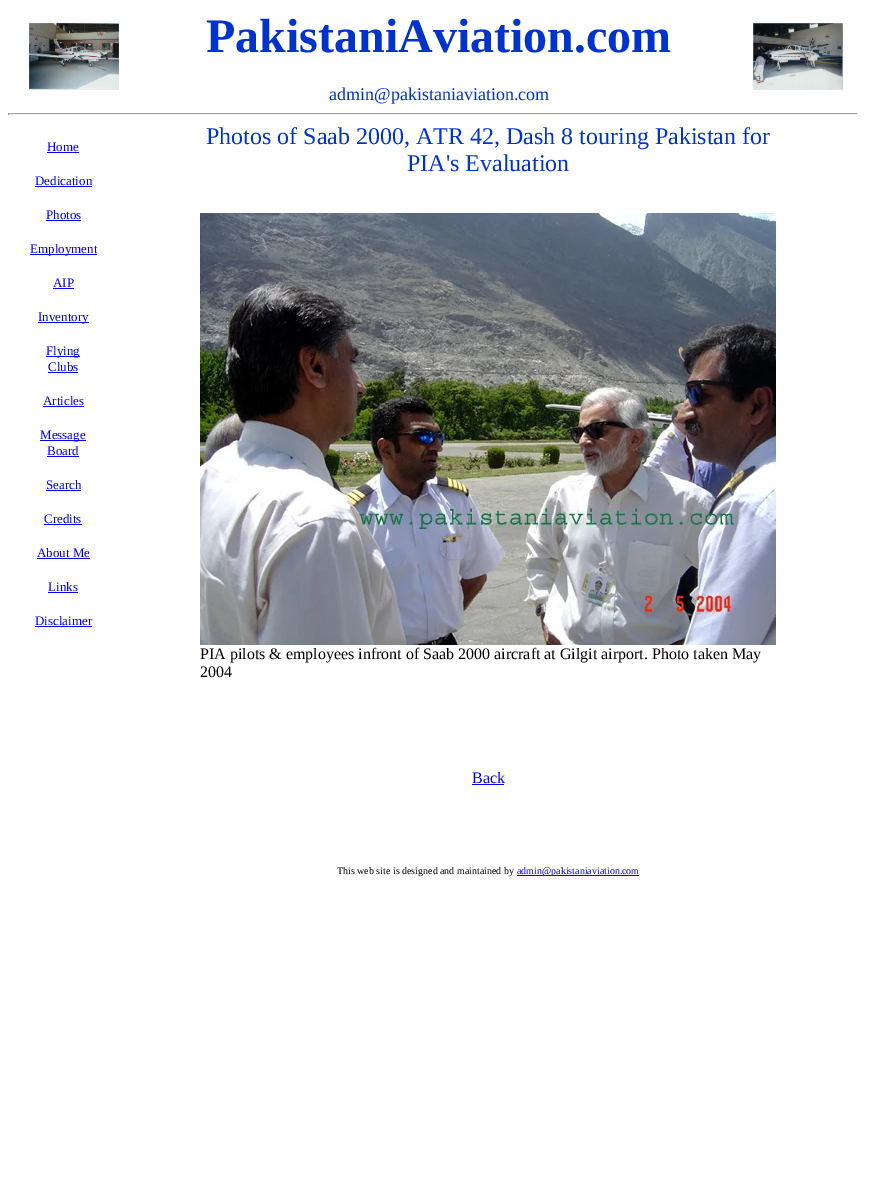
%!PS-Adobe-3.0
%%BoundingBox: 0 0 883 1194
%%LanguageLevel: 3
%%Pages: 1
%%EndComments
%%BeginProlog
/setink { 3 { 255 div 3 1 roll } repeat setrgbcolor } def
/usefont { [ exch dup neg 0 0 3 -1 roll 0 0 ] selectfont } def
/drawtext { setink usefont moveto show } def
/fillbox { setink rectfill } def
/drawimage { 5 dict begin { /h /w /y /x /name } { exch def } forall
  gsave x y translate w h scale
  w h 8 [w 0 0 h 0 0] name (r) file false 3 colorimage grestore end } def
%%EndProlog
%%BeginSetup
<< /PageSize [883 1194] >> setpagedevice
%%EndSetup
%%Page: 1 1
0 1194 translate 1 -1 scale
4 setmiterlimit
0 0 883 1194 255 255 255 fillbox
(assets/img1.rgb) 29 23 90 67 drawimage
(PakistaniAviation.com) 206 52 /LiberationSerif-Bold 48 0 51 204 drawtext
(admin@pakistaniaviation.com) 329 100 /LiberationSerif-Regular 18 0 51 204 drawtext
(assets/img2.rgb) 753 23 90 67 drawimage
8 113 850 1 159 159 159 fillbox
857 113 1 2 238 238 238 fillbox
8 114 850 1 238 238 238 fillbox
8 113 1 2 159 159 159 fillbox
(Home) 47 151 /LiberationSerif-Regular 13 0 0 238 drawtext
47 152 32 1 0 0 238 fillbox
(Dedication) 35 185 /LiberationSerif-Regular 13 0 0 238 drawtext
35 186 57 1 0 0 238 fillbox
(Photos) 46 219 /LiberationSerif-Regular 13 0 0 238 drawtext
46 220 35 1 0 0 238 fillbox
30 254 67 1 0 0 238 fillbox
(Employment) 30 253 /LiberationSerif-Regular 13 0 0 238 drawtext
(AIP) 53 287 /LiberationSerif-Regular 13 0 0 238 drawtext
53 288 21 1 0 0 238 fillbox
38 322 51 1 0 0 238 fillbox
(Inventory) 38 321 /LiberationSerif-Regular 13 0 0 238 drawtext
46 356 34 1 0 0 238 fillbox
(Flying) 46 355 /LiberationSerif-Regular 13 0 0 238 drawtext
(Clubs) 48 371 /LiberationSerif-Regular 13 0 0 238 drawtext
48 372 30 1 0 0 238 fillbox
(Articles) 43 405 /LiberationSerif-Regular 13 0 0 238 drawtext
43 406 41 1 0 0 238 fillbox
40 440 46 1 0 0 238 fillbox
(Message) 40 439 /LiberationSerif-Regular 13 0 0 238 drawtext
(Board) 47 455 /LiberationSerif-Regular 13 0 0 238 drawtext
47 456 32 1 0 0 238 fillbox
(Search) 46 489 /LiberationSerif-Regular 13 0 0 238 drawtext
46 490 35 1 0 0 238 fillbox
(Credits) 44 523 /LiberationSerif-Regular 13 0 0 238 drawtext
44 524 38 1 0 0 238 fillbox
(About Me) 37 557 /LiberationSerif-Regular 13 0 0 238 drawtext
37 558 53 1 0 0 238 fillbox
(Links) 48 591 /LiberationSerif-Regular 13 0 0 238 drawtext
48 592 30 1 0 0 238 fillbox
(Disclaimer) 35 625 /LiberationSerif-Regular 13 0 0 238 drawtext
35 626 57 1 0 0 238 fillbox
(Photos of Saab 2000, ATR 42, Dash 8 touring Pakistan for) 206 144 /LiberationSerif-Regular 24 0 51 204 drawtext
(PIA's Evaluation) 407 171 /LiberationSerif-Regular 24 0 51 204 drawtext
(assets/img3.rgb) 200 213 576 432 drawimage
(PIA pilots & employees infront of Saab 2000 aircraft at Gilgit airport. Photo taken May) 200 659 /LiberationSerif-Regular 16 0 0 0 drawtext
(2004) 200 677 /LiberationSerif-Regular 16 0 0 0 drawtext
(Back) 472 783 /LiberationSerif-Regular 16 0 0 238 drawtext
472 784 32 1 0 0 238 fillbox
(This web site is designed and maintained by) 337 874 /LiberationSerif-Regular 10 0 0 0 drawtext
517 875 122 1 0 0 238 fillbox
(admin@pakistaniaviation.com) 517 874 /LiberationSerif-Regular 10 0 0 238 drawtext
showpage
%%EOF
